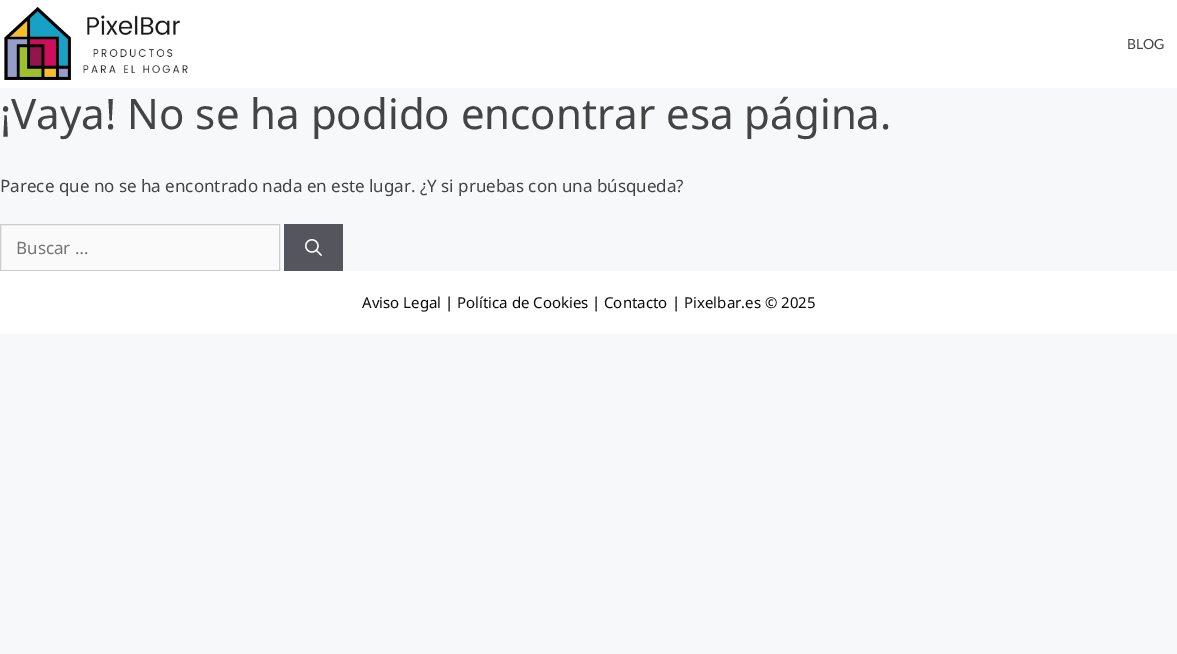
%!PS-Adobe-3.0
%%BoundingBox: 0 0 1177 654
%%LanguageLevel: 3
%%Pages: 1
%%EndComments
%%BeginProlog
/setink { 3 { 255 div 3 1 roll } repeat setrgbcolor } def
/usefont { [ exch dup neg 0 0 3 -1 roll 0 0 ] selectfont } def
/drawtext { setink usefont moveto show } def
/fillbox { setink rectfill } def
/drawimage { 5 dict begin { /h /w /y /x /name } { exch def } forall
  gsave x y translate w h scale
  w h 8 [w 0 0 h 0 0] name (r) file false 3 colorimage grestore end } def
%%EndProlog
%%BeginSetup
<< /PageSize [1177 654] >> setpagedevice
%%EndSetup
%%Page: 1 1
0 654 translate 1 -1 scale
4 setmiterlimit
0 0 1177 654 247 248 249 fillbox
0 0 1177 88 255 255 255 fillbox
(assets/img1.rgb) 4 7 184 73 drawimage
(BLOG) 1127 49 /Lato-Regular 14 68 68 68 drawtext
(¡Vaya! No se ha podido encontrar esa página.) 0 129 /NotoSans-Regular 42 68 68 68 drawtext
(Parece que no se ha encontrado nada en este lugar. ¿Y si pruebas con una búsqueda?) 0 192 /NotoSans-Regular 17 68 68 68 drawtext
250 250 250 setink
0.5 224.5 moveto 279.5 224.5 lineto 279.5 270.5 lineto 0.5 270.5 lineto closepath gsave fill grestore
204 204 204 setink
stroke
(Buscar …) 16 254 /NotoSans-Regular 17 117 117 117 drawtext
284 224 59 47 85 85 94 fillbox
(assets/img2.rgb) 305 239 17 17 drawimage
0 271 1177 63 255 255 255 fillbox
(Aviso Legal) 362 308 /NotoSans-Regular 15 12 12 12 drawtext
(|) 445 308 /NotoSans-Regular 15 12 12 12 drawtext
(Política de Cookies) 457 308 /NotoSans-Regular 15 12 12 12 drawtext
(|) 592 308 /NotoSans-Regular 15 12 12 12 drawtext
(Contacto) 604 308 /NotoSans-Regular 15 12 12 12 drawtext
(| Pixelbar.es © 2025) 672 308 /NotoSans-Regular 15 12 12 12 drawtext
showpage
%%EOF
